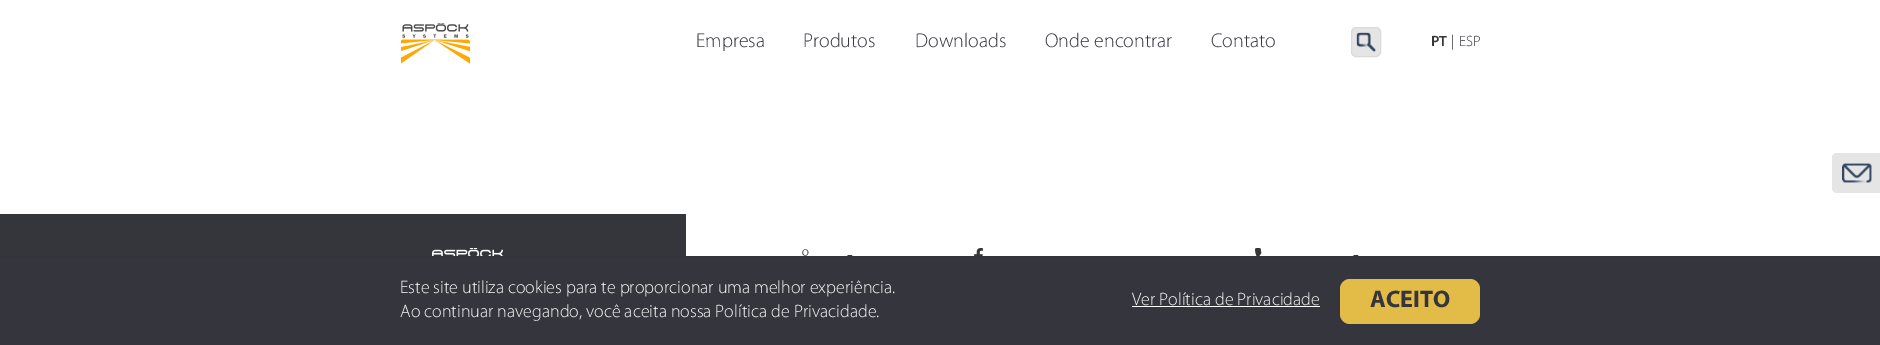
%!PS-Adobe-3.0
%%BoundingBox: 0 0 1880 345
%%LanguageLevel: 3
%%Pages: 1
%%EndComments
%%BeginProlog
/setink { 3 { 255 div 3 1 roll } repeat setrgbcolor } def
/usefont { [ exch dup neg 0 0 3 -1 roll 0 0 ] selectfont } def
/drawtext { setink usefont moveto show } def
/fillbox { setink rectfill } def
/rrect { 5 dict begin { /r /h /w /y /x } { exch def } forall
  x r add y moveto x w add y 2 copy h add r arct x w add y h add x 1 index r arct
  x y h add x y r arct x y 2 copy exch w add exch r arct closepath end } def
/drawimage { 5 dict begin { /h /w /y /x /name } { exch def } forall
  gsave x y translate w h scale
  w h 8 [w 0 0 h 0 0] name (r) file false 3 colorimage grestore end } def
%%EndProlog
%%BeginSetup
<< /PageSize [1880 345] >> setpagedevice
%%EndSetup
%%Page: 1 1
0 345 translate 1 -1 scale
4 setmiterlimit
0 0 1880 345 255 255 255 fillbox
(assets/img1.rgb) 401 23 69 41 drawimage
(Empresa) 696 47 /Myriad-Light 20 53 53 60 drawtext
(Produtos) 803 47 /Myriad-Light 20 53 53 60 drawtext
(Downloads) 915 47 /Myriad-Light 20 53 53 60 drawtext
(Onde encontrar) 1045 47 /Myriad-Light 20 53 53 60 drawtext
(Contato) 1211 47 /Myriad-Light 20 53 53 60 drawtext
229 229 229 setink
1351.5 27.5 29 29 4.5 rrect gsave fill grestore
218 218 218 setink
stroke
(assets/img2.rgb) 1356 32 20 20 drawimage
(PT) 1431 46 /Myriad-SemiBold 15 53 53 60 drawtext
(|) 1451 46 /Myriad-Light 15 53 53 60 drawtext
(ESP) 1459 46 /Myriad-Light 15 53 53 60 drawtext
229 229 229 setink
1837 153 moveto 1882 153 lineto 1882 193 lineto 1837 193 lineto 1834 193 1832 191 1832 188 curveto 1832 158 lineto 1832 155 1834 153 1837 153 curveto closepath fill
(assets/img3.rgb) 1842 163 30 20 drawimage
0 214 686 42 53 53 60 fillbox
(assets/img4.rgb) 432 248 71 8 drawimage
(º) 802 261 /Myriad-Light 20 54 54 54 drawtext
(-) 847 261 /Myriad-Light 20 54 54 54 drawtext
(assets/img5.rgb) 974 248 9 8 drawimage
(assets/img6.rgb) 1255 248 7 8 drawimage
(-) 1353 261 /Myriad-Light 20 54 54 54 drawtext
0 257 1880 88 53 54 61 fillbox
0 256 1880 1 51 52 58 fillbox
(Este site utiliza cookies para te proporcionar uma melhor experiência.) 400 293 /Myriad-Light 18 255 255 255 drawtext
(Ao continuar navegando, você aceita nossa Política de Privacidade.) 400 317 /Myriad-Light 18 255 255 255 drawtext
(Ver Política de Privacidade) 1132 305 /Myriad-Light 18 255 255 255 drawtext
1132 306 188 1 255 255 255 fillbox
227 187 71 setink
1340 279 140 45 10 rrect fill
(ACEITO) 1370 307 /Myriad-Bold 24 53 53 60 drawtext
showpage
%%EOF
